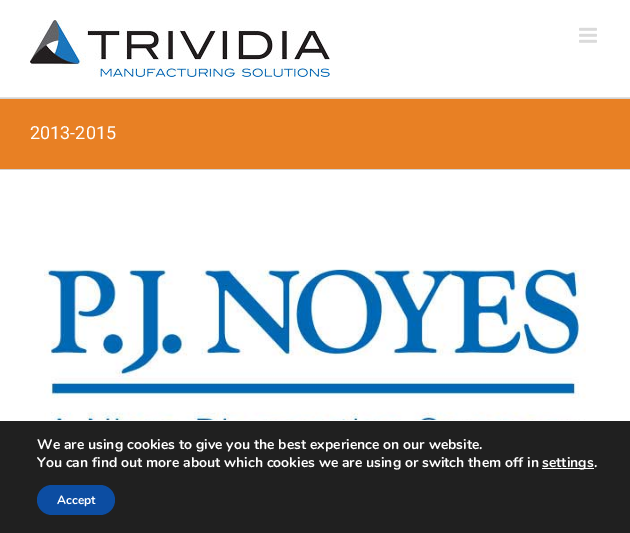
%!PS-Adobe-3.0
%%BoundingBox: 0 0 630 533
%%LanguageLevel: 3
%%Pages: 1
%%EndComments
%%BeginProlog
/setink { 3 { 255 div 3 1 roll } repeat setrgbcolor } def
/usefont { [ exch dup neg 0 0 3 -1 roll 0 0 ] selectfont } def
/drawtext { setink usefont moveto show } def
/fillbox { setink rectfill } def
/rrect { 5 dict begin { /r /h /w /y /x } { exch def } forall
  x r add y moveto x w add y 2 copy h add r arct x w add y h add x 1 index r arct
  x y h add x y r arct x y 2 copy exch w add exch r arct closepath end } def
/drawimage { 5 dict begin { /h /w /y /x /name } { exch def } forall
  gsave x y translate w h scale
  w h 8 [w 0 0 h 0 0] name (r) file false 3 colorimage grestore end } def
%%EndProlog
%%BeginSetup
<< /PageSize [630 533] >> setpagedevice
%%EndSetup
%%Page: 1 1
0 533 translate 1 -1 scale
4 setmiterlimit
0 0 630 533 255 255 255 fillbox
0 97 630 1 225 225 225 fillbox
(assets/img1.rgb) 30 20 300 57 drawimage
(assets/img2.rgb) 579 27 18 16 drawimage
0 99 630 70 232 128 36 fillbox
0 98 630 1 210 211 212 fillbox
0 169 630 1 210 211 212 fillbox
(2013-2015) 30 139 /Roboto-Regular 18 255 255 255 drawtext
(assets/img3.rgb) 44 269 542 151 drawimage
0 421 630 112 32 32 32 fillbox
(We are using cookies to give you the best experience on our website.) 37 449 /Nunito-Bold 14 255 255 255 drawtext
(You can find out more about which cookies we are using or switch them off in) 37 467 /Nunito-Bold 14 255 255 255 drawtext
542 468 52 1 255 255 255 fillbox
(settings.) 542 467 /Nunito-Bold 14 255 255 255 drawtext
12 77 162 setink
37 485 78 30 15 rrect fill
(Accept) 57 504 /Nunito-Bold 12 255 255 255 drawtext
showpage
%%EOF
